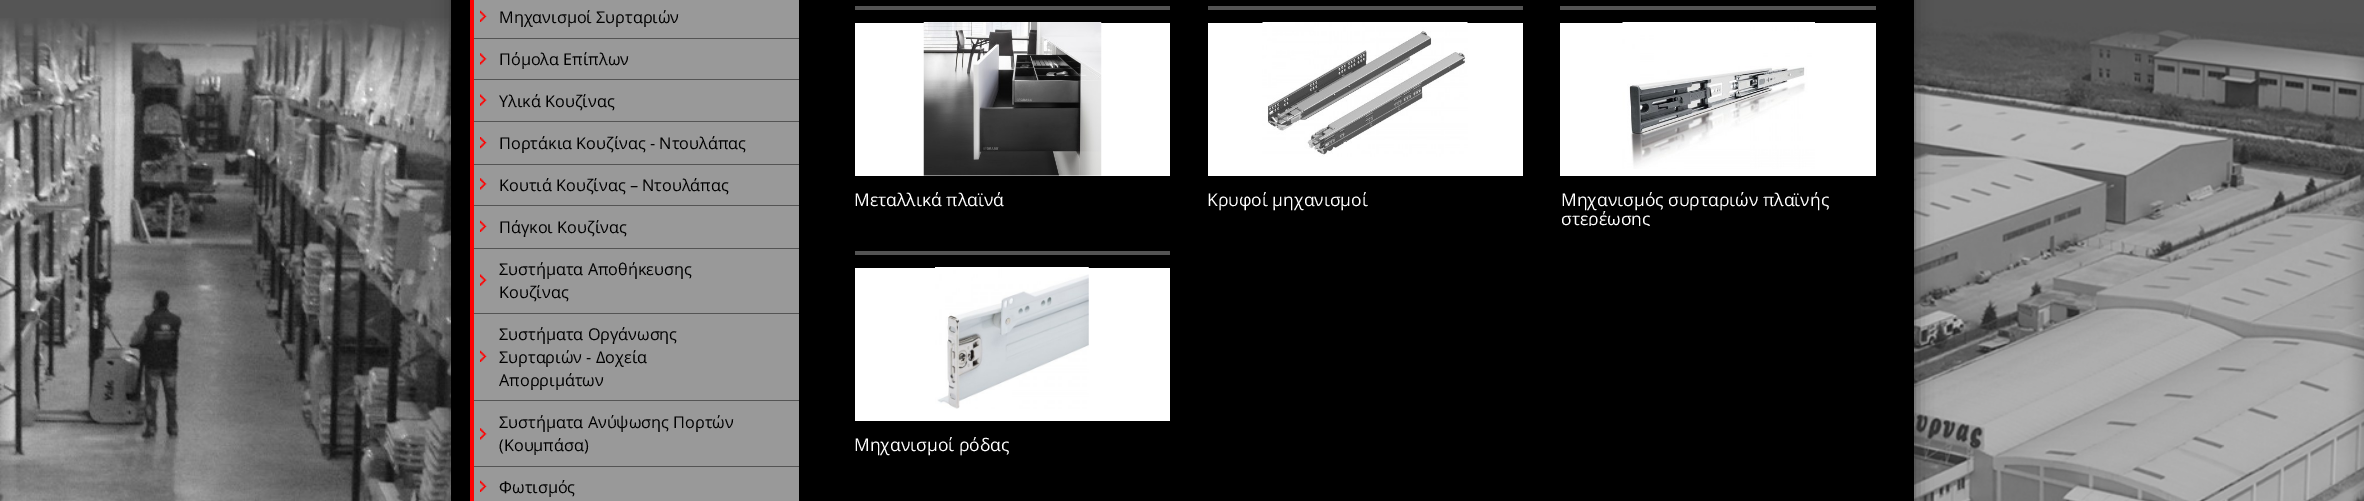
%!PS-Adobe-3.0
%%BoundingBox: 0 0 2364 501
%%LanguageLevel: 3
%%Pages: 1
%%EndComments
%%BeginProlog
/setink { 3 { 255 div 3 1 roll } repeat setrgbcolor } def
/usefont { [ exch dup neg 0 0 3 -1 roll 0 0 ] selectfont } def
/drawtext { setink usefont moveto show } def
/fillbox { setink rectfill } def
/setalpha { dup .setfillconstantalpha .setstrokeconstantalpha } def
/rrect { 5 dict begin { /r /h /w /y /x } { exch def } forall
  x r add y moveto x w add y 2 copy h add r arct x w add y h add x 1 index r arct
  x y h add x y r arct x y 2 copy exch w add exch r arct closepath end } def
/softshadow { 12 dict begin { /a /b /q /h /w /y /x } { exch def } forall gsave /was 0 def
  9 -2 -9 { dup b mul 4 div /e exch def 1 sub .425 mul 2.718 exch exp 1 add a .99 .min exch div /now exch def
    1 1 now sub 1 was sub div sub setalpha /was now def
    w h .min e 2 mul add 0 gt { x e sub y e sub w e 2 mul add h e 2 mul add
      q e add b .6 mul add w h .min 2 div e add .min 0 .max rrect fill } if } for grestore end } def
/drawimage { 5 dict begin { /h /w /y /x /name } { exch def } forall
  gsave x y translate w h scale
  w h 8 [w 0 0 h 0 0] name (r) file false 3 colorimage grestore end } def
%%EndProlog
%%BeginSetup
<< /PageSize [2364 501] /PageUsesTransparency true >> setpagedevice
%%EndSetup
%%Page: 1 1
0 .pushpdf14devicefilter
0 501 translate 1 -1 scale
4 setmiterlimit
0 0 2364 501 85 85 85 fillbox
(assets/img1.rgb) 0 18 2364 483 drawimage
50 50 50 setink
451 -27 1463 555 0 9 0.75 softshadow
451 0 1463 501 0 0 0 fillbox
470 0 4 501 255 0 0 fillbox
474 0 325 501 153 153 153 fillbox
(assets/img2.rgb) 480 10 7 12 drawimage
(Μηχανισμοί Συρταριών) 499 23 /OpenSans-Regular 16.25 0 0 0 drawtext
474 38 325 1 84 84 84 fillbox
(assets/img3.rgb) 480 53 7 12 drawimage
(Πόμολα Επίπλων) 499 65 /OpenSans-Regular 16.25 0 0 0 drawtext
474 79 325 1 84 84 84 fillbox
(assets/img4.rgb) 480 94 7 12 drawimage
(Υλικά Κουζίνας) 499 107 /OpenSans-Regular 16.25 0 0 0 drawtext
474 121 325 1 84 84 84 fillbox
(assets/img5.rgb) 480 137 7 12 drawimage
(Πορτάκια Κουζίνας - Ντουλάπας) 499 149 /OpenSans-Regular 16.25 0 0 0 drawtext
474 164 325 1 84 84 84 fillbox
(assets/img3.rgb) 480 178 7 12 drawimage
(Κουτιά Κουζίνας – Ντουλάπας) 499 191 /OpenSans-Regular 16.25 0 0 0 drawtext
474 205 325 1 84 84 84 fillbox
(assets/img2.rgb) 480 220 7 12 drawimage
(Πάγκοι Κουζίνας) 499 233 /OpenSans-Regular 16.25 0 0 0 drawtext
474 248 325 1 84 84 84 fillbox
(assets/img6.rgb) 480 274 7 12 drawimage
(Συστήματα Αποθήκευσης) 499 275 /OpenSans-Regular 16.25 0 0 0 drawtext
(Κουζίνας) 499 298 /OpenSans-Regular 16.25 0 0 0 drawtext
474 313 325 1 84 84 84 fillbox
(assets/img2.rgb) 480 350 7 12 drawimage
(Συστήματα Οργάνωσης) 499 340 /OpenSans-Regular 16.25 0 0 0 drawtext
(Συρταριών - Δοχεία) 499 363 /OpenSans-Regular 16.25 0 0 0 drawtext
(Απορριμάτων) 499 386 /OpenSans-Regular 16.25 0 0 0 drawtext
474 400 325 1 84 84 84 fillbox
(assets/img3.rgb) 480 428 7 12 drawimage
(Συστήματα Ανύψωσης Πορτών) 499 428 /OpenSans-Regular 16.25 0 0 0 drawtext
(\(Κουμπάσα\)) 499 451 /OpenSans-Regular 16.25 0 0 0 drawtext
474 466 325 1 84 84 84 fillbox
(assets/img2.rgb) 480 480 7 12 drawimage
(Φωτισμός) 499 493 /OpenSans-Regular 16.25 0 0 0 drawtext
855 6 315 4 83 83 83 fillbox
855 23 315 153 255 255 255 fillbox
(assets/img7.rgb) 923 22 179 154 drawimage
(Μεταλλικά πλαϊνά) 854 206 /OpenSans-Regular 17.5 255 255 255 drawtext
1208 6 315 4 83 83 83 fillbox
1208 23 315 153 255 255 255 fillbox
(assets/img8.rgb) 1262 22 206 135 drawimage
(Κρυφοί μηχανισμοί) 1207 206 /OpenSans-Regular 17.5 255 255 255 drawtext
1560 6 316 4 83 83 83 fillbox
1560 23 316 153 255 255 255 fillbox
(assets/img9.rgb) 1622 22 193 147 drawimage
(Μηχανισμός συρταριών πλαϊνής) 1561 206 /OpenSans-Regular 17.5 255 255 255 drawtext
gsave
1560 189 316 37 rectclip
(στερέωσης) 1561 225 /OpenSans-Regular 17.5 255 255 255 drawtext
grestore
855 251 315 4 83 83 83 fillbox
855 268 315 153 255 255 255 fillbox
(assets/img10.rgb) 935 267 154 142 drawimage
(Μηχανισμοί ρόδας) 854 451 /OpenSans-Regular 17.5 255 255 255 drawtext
.poppdf14devicefilter showpage
%%EOF
